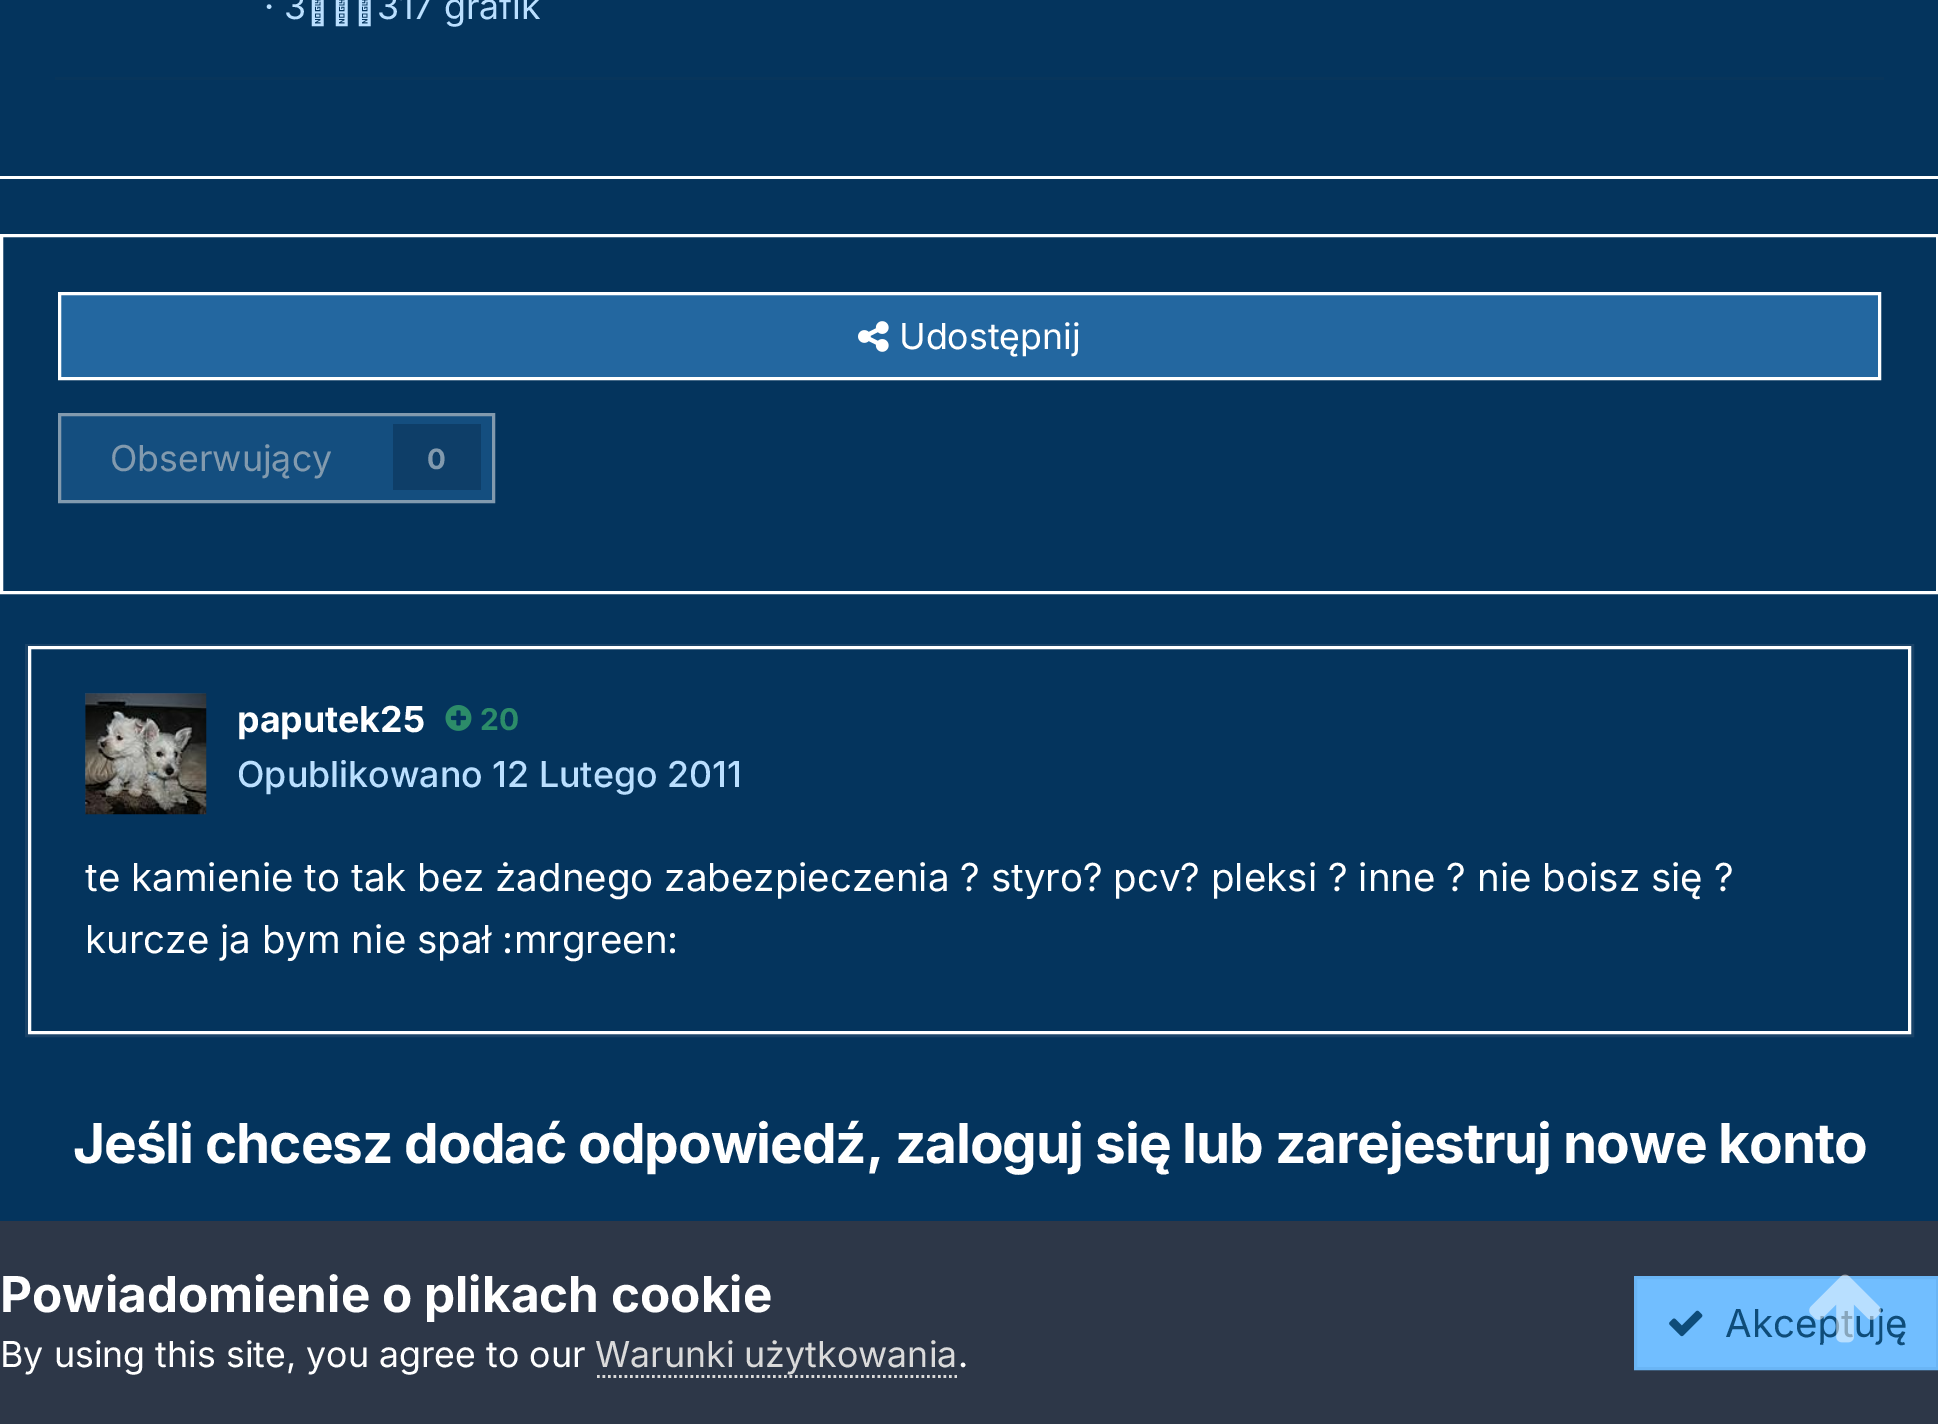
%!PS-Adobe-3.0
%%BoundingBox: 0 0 1938 1424
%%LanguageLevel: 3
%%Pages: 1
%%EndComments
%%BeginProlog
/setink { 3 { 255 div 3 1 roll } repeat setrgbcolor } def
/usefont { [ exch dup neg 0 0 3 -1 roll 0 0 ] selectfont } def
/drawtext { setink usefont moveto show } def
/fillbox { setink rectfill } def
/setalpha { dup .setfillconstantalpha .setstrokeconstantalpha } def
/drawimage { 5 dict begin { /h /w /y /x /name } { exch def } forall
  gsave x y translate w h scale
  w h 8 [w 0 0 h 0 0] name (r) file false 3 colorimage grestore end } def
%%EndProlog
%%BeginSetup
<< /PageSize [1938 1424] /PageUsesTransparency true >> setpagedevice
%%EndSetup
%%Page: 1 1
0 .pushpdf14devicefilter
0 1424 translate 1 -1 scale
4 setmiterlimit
0 0 1938 1424 4 52 93 fillbox
0 176 1938 3 255 255 255 fillbox
(· 3 317 grafik) 264 19 /Inter-Regular 35.75 186 223 255 drawtext
55 77 1829 3 8 53 91 fillbox
255 255 255 setink
3 setlinewidth
1.5 235.5 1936 357 rectstroke
35 103 160 setink
59.5 293.5 moveto 1879.5 293.5 lineto 1879.5 378.5 lineto 59.5 378.5 lineto closepath gsave fill grestore
255 255 255 setink
stroke
(assets/img1.rgb) 858 321 31 31 drawimage
(Udostępnij) 899 349 /Inter-Regular 35.75 255 255 255 drawtext
20 78 127 setink
59.5 414.5 moveto 493.5 414.5 lineto 493.5 501.5 lineto 59.5 501.5 lineto closepath gsave fill grestore
130 154 174 setink
stroke
(Obserwujący) 110 471 /Inter-Regular 35.75 130 154 174 drawtext
393 424 88 66 14 62 104 fillbox
(0) 427 469 /Inter-Bold 28 130 154 174 drawtext
0.2 setalpha
113 128 150 setink
26.5 645.5 1886 390 rectstroke
1 setalpha
255 255 255 setink
29.5 647.5 1880 385 rectstroke
85 693 121 121 11 83 148 fillbox
(assets/img2.rgb) 85 693 122 122 drawimage
(paputek25) 237 732 /Inter-Bold 35.75 255 255 255 drawtext
(assets/img3.rgb) 445 705 27 26 drawimage
(20) 480 730 /Inter-Bold 30 44 140 105 drawtext
(Opublikowano 12 Lutego 2011) 237 787 /Inter-Medium 35.75 186 223 255 drawtext
(te kamienie to tak bez żadnego zabezpieczenia ? styro? pcv? pleksi ? inne ? nie boisz się ?) 85 891 /Inter-Regular 38.5 255 255 255 drawtext
(kurcze ja bym nie spał :mrgreen:) 85 953 /Inter-Regular 38.5 255 255 255 drawtext
/Inter-Bold 55 usefont
73 1163 moveto -1.1 0 (Jeśli chcesz dodać odpowiedź, zaloguj się lub zarejestruj nowe konto) ashow
0 1221 1938 203 45 55 72 fillbox
113 190 255 setink
1635.5 1277.5 moveto 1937.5 1277.5 lineto 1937.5 1368.5 lineto 1635.5 1368.5 lineto closepath gsave fill grestore
106 181 245 setink
stroke
(Akceptuję) 1725 1337 /Inter-Regular 38.5 14 76 121 drawtext
(assets/img4.rgb) 1809 1274 72 69 drawimage
(Powiadomienie o plikach cookie) 0 1312 /Inter-Bold 49.5 255 255 255 drawtext
(By using this site, you agree to our) 0 1367 /Inter-Regular 35.75 255 255 255 drawtext
(Warunki użytkowania) 595 1367 /Inter-Regular 35.75 218 218 218 drawtext
2.8 setlinewidth
[2.75 2.75] 0 setdash
597 1376.5 moveto 957 1376.5 lineto stroke
(.) 958 1367 /Inter-Regular 35.75 255 255 255 drawtext
(assets/img5.rgb) 1669 1310 34 27 drawimage
.poppdf14devicefilter showpage
%%EOF
